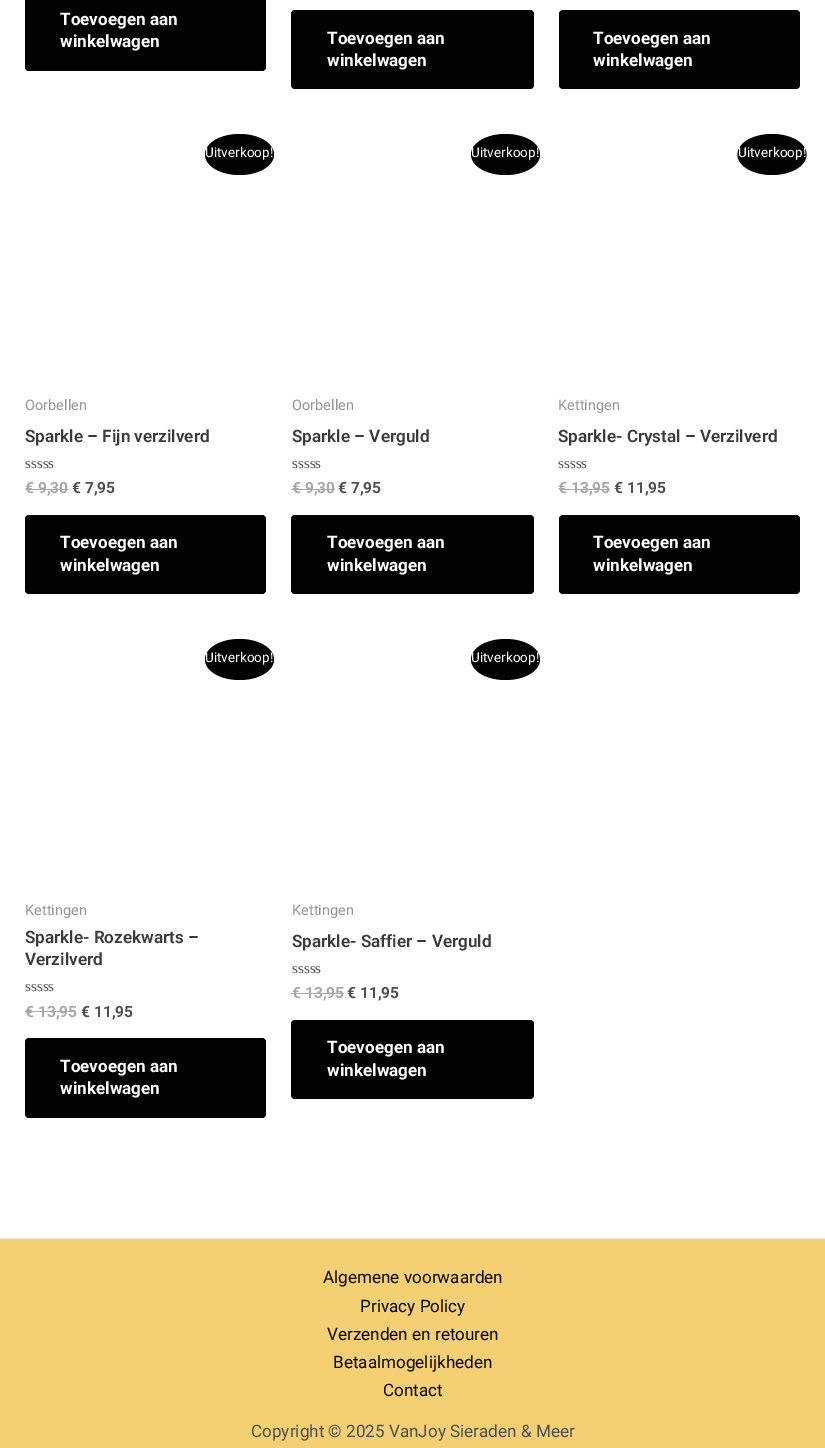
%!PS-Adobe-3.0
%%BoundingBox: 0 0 825 1448
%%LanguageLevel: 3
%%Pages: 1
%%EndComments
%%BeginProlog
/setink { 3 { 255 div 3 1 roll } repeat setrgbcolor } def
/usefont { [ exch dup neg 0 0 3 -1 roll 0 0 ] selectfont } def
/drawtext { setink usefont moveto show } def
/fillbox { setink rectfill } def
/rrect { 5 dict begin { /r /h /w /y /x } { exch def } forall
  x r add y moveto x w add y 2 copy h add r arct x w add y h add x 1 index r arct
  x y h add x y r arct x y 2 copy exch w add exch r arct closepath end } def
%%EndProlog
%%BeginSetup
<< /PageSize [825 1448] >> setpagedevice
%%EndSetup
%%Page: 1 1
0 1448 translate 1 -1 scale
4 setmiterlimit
0 0 825 1448 255 255 255 fillbox
0 1 1 setink
25 -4 241 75 4 rrect fill
(Toevoegen aan) 60 25 /Roboto-Bold 17.1 255 255 255 drawtext
(winkelwagen) 60 47 /Roboto-Bold 17.1 255 255 255 drawtext
0 1 1 setink
291 10 243 79 4 rrect fill
(Toevoegen aan) 327 44 /Roboto-Bold 17.1 255 255 255 drawtext
(winkelwagen) 327 66 /Roboto-Bold 17.1 255 255 255 drawtext
0 1 1 setink
559 10 241 79 4 rrect fill
(Toevoegen aan) 593 44 /Roboto-Bold 17.1 255 255 255 drawtext
(winkelwagen) 593 66 /Roboto-Bold 17.1 255 255 255 drawtext
0 1 1 setink
239.5 134 moveto 258.5 134 274 143 274 154.5 curveto 274 166 258.5 175 239.5 175 curveto 220.5 175 205 166 205 154.5 curveto 205 143 220.5 134 239.5 134 curveto closepath fill
(Uitverkoop!) 205 157 /Roboto-Regular 13.5 255 255 255 drawtext
(Oorbellen) 25 410 /Roboto-Regular 14.5 147 149 155 drawtext
(Sparkle – Fijn verzilverd) 25 442 /Roboto-SemiBold 17.1 58 58 58 drawtext
(sssss) 25 468 /LiberationSerif-Regular 15 75 79 88 drawtext
(€ 9,30) 25 493 /Roboto-Bold 15.5 165 167 172 drawtext
25 489 43 1 165 167 172 fillbox
(€ 7,95) 72 493 /Roboto-Bold 15.5 75 79 88 drawtext
0 1 1 setink
25 515 241 79 4 rrect fill
(Toevoegen aan) 60 548 /Roboto-Bold 17.1 255 255 255 drawtext
(winkelwagen) 60 571 /Roboto-Bold 17.1 255 255 255 drawtext
0 1 1 setink
505.5 134 moveto 524.5 134 540 143 540 154.5 curveto 540 166 524.5 175 505.5 175 curveto 486.5 175 471 166 471 154.5 curveto 471 143 486.5 134 505.5 134 curveto closepath fill
(Uitverkoop!) 471 157 /Roboto-Regular 13.5 255 255 255 drawtext
(Oorbellen) 292 410 /Roboto-Regular 14.5 147 149 155 drawtext
(Sparkle – Verguld) 292 442 /Roboto-SemiBold 17.1 58 58 58 drawtext
(sssss) 292 468 /LiberationSerif-Regular 15 75 79 88 drawtext
(€ 9,30) 292 493 /Roboto-Bold 15.5 165 167 172 drawtext
291 489 44 1 165 167 172 fillbox
(€ 7,95) 338 493 /Roboto-Bold 15.5 75 79 88 drawtext
0 1 1 setink
291 515 243 79 4 rrect fill
(Toevoegen aan) 327 548 /Roboto-Bold 17.1 255 255 255 drawtext
(winkelwagen) 327 571 /Roboto-Bold 17.1 255 255 255 drawtext
0 1 1 setink
772 134 moveto 791 134 806.5 143 806.5 154.5 curveto 806.5 166 791 175 772 175 curveto 753 175 737.5 166 737.5 154.5 curveto 737.5 143 753 134 772 134 curveto closepath fill
(Uitverkoop!) 738 157 /Roboto-Regular 13.5 255 255 255 drawtext
(Kettingen) 558 410 /Roboto-Regular 14.5 147 149 155 drawtext
(Sparkle- Crystal – Verzilverd) 558 442 /Roboto-SemiBold 17.1 58 58 58 drawtext
(sssss) 558 468 /LiberationSerif-Regular 15 75 79 88 drawtext
(€ 13,95) 558 493 /Roboto-Bold 15.5 165 167 172 drawtext
559 489 51 1 165 167 172 fillbox
(€ 11,95) 614 493 /Roboto-Bold 15.5 75 79 88 drawtext
0 1 1 setink
559 515 241 79 4 rrect fill
(Toevoegen aan) 593 548 /Roboto-Bold 17.1 255 255 255 drawtext
(winkelwagen) 593 571 /Roboto-Bold 17.1 255 255 255 drawtext
0 1 1 setink
239.5 639 moveto 258.5 639 274 648 274 659.5 curveto 274 671 258.5 680 239.5 680 curveto 220.5 680 205 671 205 659.5 curveto 205 648 220.5 639 239.5 639 curveto closepath fill
(Uitverkoop!) 205 662 /Roboto-Regular 13.5 255 255 255 drawtext
(Kettingen) 25 915 /Roboto-Regular 14.5 147 149 155 drawtext
(Sparkle- Rozekwarts –) 25 943 /Roboto-SemiBold 17.1 58 58 58 drawtext
(Verzilverd) 25 965 /Roboto-SemiBold 17.1 58 58 58 drawtext
(sssss) 25 991 /LiberationSerif-Regular 15 75 79 88 drawtext
(€ 13,95) 25 1017 /Roboto-Bold 15.5 165 167 172 drawtext
25 1011 51 1 165 167 172 fillbox
(€ 11,95) 81 1017 /Roboto-Bold 15.5 75 79 88 drawtext
0 1 1 setink
25 1038 241 80 4 rrect fill
(Toevoegen aan) 60 1072 /Roboto-Bold 17.1 255 255 255 drawtext
(winkelwagen) 60 1094 /Roboto-Bold 17.1 255 255 255 drawtext
0 1 1 setink
505.5 639 moveto 524.5 639 540 648 540 659.5 curveto 540 671 524.5 680 505.5 680 curveto 486.5 680 471 671 471 659.5 curveto 471 648 486.5 639 505.5 639 curveto closepath fill
(Uitverkoop!) 471 662 /Roboto-Regular 13.5 255 255 255 drawtext
(Kettingen) 292 915 /Roboto-Regular 14.5 147 149 155 drawtext
(Sparkle- Saffier – Verguld) 292 947 /Roboto-SemiBold 17.1 58 58 58 drawtext
(sssss) 292 973 /LiberationSerif-Regular 15 75 79 88 drawtext
(€ 13,95) 292 998 /Roboto-Bold 15.5 165 167 172 drawtext
291 993 53 1 165 167 172 fillbox
(€ 11,95) 347 998 /Roboto-Bold 15.5 75 79 88 drawtext
0 1 1 setink
291 1020 243 79 4 rrect fill
(Toevoegen aan) 327 1053 /Roboto-Bold 17.1 255 255 255 drawtext
(winkelwagen) 327 1076 /Roboto-Bold 17.1 255 255 255 drawtext
0 1239 825 209 245 208 115 fillbox
0 1238 825 1 229 229 229 fillbox
(Algemene voorwaarden) 323 1283 /Roboto-Regular 17.1 5 5 5 drawtext
(Privacy Policy) 360 1312 /Roboto-Regular 17.1 5 5 5 drawtext
(Verzenden en retouren) 327 1340 /Roboto-Regular 17.1 5 5 5 drawtext
(Betaalmogelijkheden) 333 1368 /Roboto-Regular 17.1 5 5 5 drawtext
(Contact) 383 1396 /Roboto-Regular 17.1 5 5 5 drawtext
(Copyright © 2025 VanJoy Sieraden & Meer) 251 1437 /Roboto-Regular 17.1 75 79 88 drawtext
showpage
%%EOF
